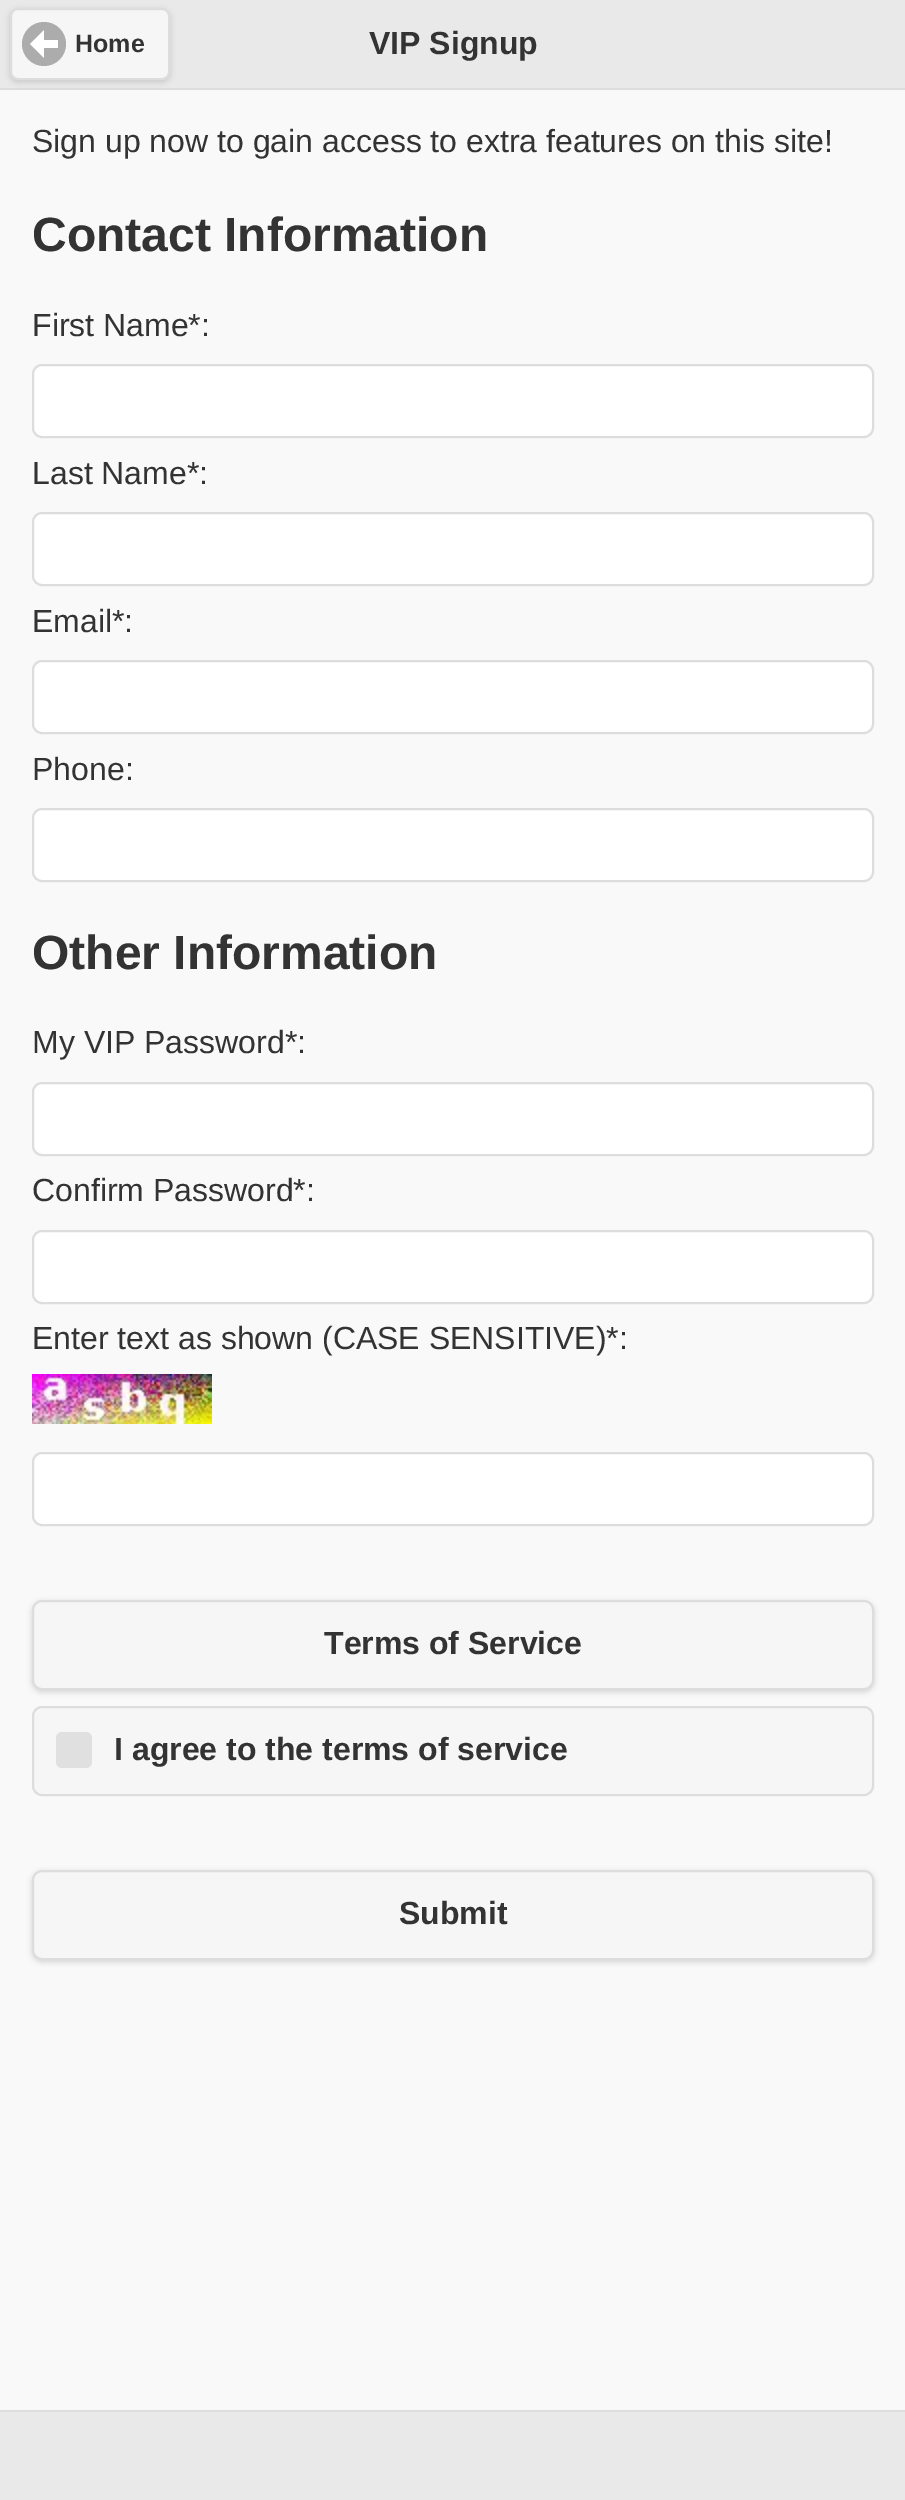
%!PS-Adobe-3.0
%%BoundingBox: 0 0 905 2500
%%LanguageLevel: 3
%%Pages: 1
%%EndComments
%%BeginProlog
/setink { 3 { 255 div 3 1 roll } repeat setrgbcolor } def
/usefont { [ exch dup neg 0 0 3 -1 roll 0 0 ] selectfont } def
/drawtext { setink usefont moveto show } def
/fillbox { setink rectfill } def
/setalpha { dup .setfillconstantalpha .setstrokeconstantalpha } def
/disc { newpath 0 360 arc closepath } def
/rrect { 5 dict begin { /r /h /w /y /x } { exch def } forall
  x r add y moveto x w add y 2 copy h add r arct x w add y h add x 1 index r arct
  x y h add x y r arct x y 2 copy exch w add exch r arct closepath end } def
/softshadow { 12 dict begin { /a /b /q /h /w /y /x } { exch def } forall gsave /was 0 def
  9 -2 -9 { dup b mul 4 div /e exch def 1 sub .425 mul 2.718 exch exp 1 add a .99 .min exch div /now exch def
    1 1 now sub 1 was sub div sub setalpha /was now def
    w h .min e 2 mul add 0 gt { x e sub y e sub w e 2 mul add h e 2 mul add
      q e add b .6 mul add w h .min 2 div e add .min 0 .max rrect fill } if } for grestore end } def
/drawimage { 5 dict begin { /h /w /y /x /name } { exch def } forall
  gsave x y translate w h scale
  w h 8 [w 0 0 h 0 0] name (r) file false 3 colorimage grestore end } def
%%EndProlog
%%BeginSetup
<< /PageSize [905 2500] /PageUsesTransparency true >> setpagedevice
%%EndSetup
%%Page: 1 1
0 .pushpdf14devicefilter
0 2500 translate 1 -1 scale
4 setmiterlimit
0 0 905 2500 249 249 249 fillbox
0 0 905 88 233 233 233 fillbox
0 88 905 2 221 221 221 fillbox
0 0 0 setink
10 10 160 72 8 3 0.15 softshadow
246 246 246 setink
11 9 158 70 7 rrect gsave fill grestore
221 221 221 setink
2 setlinewidth
stroke
172 172 172 setink
44 44 22 disc fill
255 255 255 setink
44 40 moveto 44 30 lineto 30 44 lineto 44 58 lineto 44 48 lineto 58 48 lineto 58 40 lineto closepath fill
(Home) 75 52 /LiberationSans-Bold 25 51 51 51 drawtext
(VIP Signup) 369 54 /LiberationSans-Bold 32 51 51 51 drawtext
(Sign up now to gain access to extra features on this site!) 32 152 /LiberationSans-Regular 32 51 51 51 drawtext
(Contact Information) 32 251 /LiberationSans-Bold 48 51 51 51 drawtext
(First Name*:) 32 336 /LiberationSans-Regular 32 51 51 51 drawtext
255 255 255 setink
33 365 840 72 9 rrect gsave fill grestore
221 221 221 setink
stroke
(Last Name*:) 32 484 /LiberationSans-Regular 32 51 51 51 drawtext
255 255 255 setink
33 513 840 72 9 rrect gsave fill grestore
221 221 221 setink
stroke
(Email*:) 32 632 /LiberationSans-Regular 32 51 51 51 drawtext
255 255 255 setink
33 661 840 72 9 rrect gsave fill grestore
221 221 221 setink
stroke
(Phone:) 32 780 /LiberationSans-Regular 32 51 51 51 drawtext
255 255 255 setink
33 809 840 72 9 rrect gsave fill grestore
221 221 221 setink
stroke
(Other Information) 32 969 /LiberationSans-Bold 48 51 51 51 drawtext
(My VIP Password*:) 32 1053 /LiberationSans-Regular 32 51 51 51 drawtext
255 255 255 setink
33 1083 840 72 9 rrect gsave fill grestore
221 221 221 setink
stroke
(Confirm Password*:) 32 1201 /LiberationSans-Regular 32 51 51 51 drawtext
255 255 255 setink
33 1231 840 72 9 rrect gsave fill grestore
221 221 221 setink
stroke
(Enter text as shown \(CASE SENSITIVE\)*:) 32 1349 /LiberationSans-Regular 32 51 51 51 drawtext
(assets/img1.rgb) 32 1374 180 50 drawimage
255 255 255 setink
33 1453 840 72 9 rrect gsave fill grestore
221 221 221 setink
stroke
0 0 0 setink
32 1602 842 90 10 3 0.15 softshadow
246 246 246 setink
33 1601 840 88 9 rrect gsave fill grestore
221 221 221 setink
stroke
(Terms of Service) 324 1654 /LiberationSans-Bold 32 51 51 51 drawtext
246 246 246 setink
33 1707 840 88 9 rrect gsave fill grestore
221 221 221 setink
stroke
224 224 224 setink
56 1732 36 36 6 rrect fill
(I agree to the terms of service) 114 1760 /LiberationSans-Bold 32 51 51 51 drawtext
0 0 0 setink
32 1872 842 90 10 3 0.15 softshadow
246 246 246 setink
33 1871 840 88 9 rrect gsave fill grestore
221 221 221 setink
stroke
(Submit) 399 1924 /LiberationSans-Bold 32 51 51 51 drawtext
0 2412 905 88 233 233 233 fillbox
0 2410 905 2 221 221 221 fillbox
.poppdf14devicefilter showpage
%%EOF
